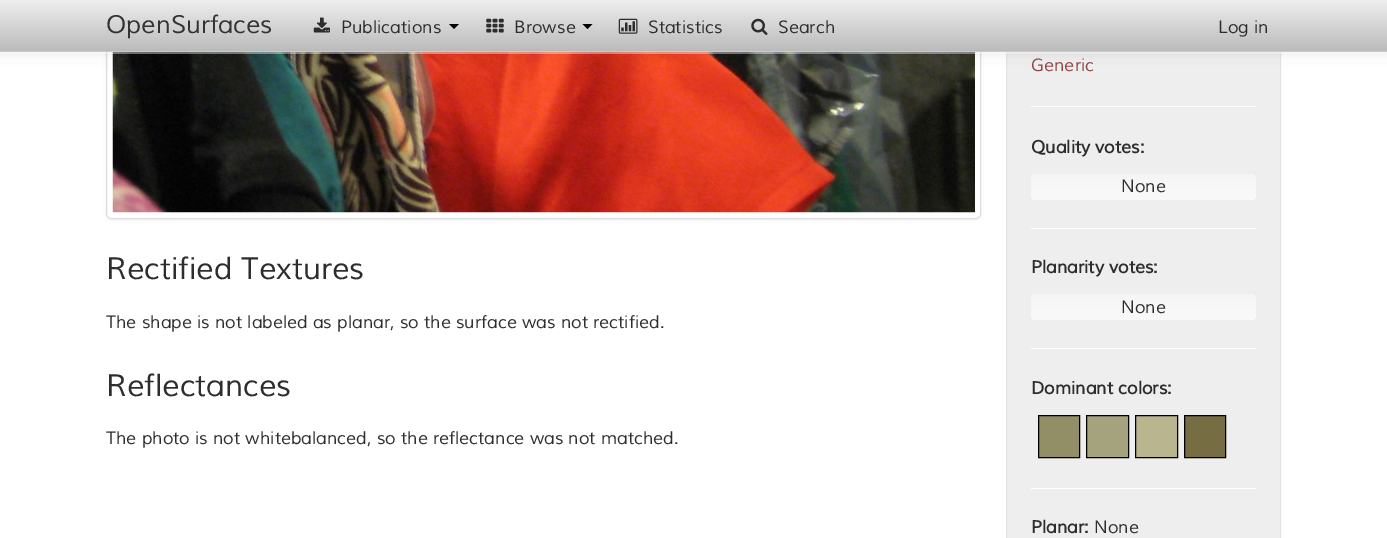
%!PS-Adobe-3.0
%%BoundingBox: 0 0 1387 538
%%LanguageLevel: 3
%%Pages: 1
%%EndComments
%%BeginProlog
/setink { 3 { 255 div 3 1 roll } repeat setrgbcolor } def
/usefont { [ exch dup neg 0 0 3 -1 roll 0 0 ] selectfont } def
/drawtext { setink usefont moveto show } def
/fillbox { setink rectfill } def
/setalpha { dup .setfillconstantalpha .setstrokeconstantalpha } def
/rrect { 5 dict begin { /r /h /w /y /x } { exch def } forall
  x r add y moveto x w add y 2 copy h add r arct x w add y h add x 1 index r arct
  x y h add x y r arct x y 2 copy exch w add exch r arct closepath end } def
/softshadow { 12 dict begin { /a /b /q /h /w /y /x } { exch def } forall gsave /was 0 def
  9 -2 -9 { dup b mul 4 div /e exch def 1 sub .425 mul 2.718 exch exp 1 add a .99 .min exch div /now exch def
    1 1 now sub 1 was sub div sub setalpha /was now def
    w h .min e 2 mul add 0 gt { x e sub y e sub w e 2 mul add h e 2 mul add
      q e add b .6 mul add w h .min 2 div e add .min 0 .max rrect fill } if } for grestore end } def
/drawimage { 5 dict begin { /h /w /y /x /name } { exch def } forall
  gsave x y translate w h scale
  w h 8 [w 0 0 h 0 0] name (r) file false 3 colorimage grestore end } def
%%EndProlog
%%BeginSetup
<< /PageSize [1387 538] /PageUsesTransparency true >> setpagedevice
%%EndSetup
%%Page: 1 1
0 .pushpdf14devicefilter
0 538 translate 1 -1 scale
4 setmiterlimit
0 0 1387 538 255 255 255 fillbox
0 0 0 setink
106 -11 875 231 5 2 0.06 softshadow
255 255 255 setink
106.5 -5.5 874 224 4.5 rrect gsave fill grestore
221 221 221 setink
stroke
(assets/img5.rgb) 112 52 863 161 drawimage
1007 52 273 486 238 238 238 fillbox
227 227 227 setink
1006.5 -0.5 274 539 rectstroke
0 0 0 setink
0 0 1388 53 0 6 0.1 softshadow
0.4 setalpha
255 255 255 setink
0 52 moveto 0 54 lineto 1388 54 lineto 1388 1 lineto 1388 52 lineto closepath fill
1 setalpha
gsave 0 0 moveto 1387 0 lineto 1387 51 lineto 0 51 lineto closepath clip newpath
<< /ShadingType 2 /ColorSpace /DeviceRGB /Coords [694 0 694 51] /Extend [true true] /Function << /FunctionType 2 /Domain [0 1] /C0 [0.933 0.933 0.933] /C1 [0.733 0.733 0.733] /N 1 >> >> shfill grestore
0 51 1387 1 202 202 202 fillbox
(OpenSurfaces) 106 33 /Muli-Italic 25 51 51 51 drawtext
(assets/img1.rgb) 313 17 17 16 drawimage
(Publications) 341 33 /Muli-Italic 17.5 45 45 45 drawtext
0 0 0 setink
449 24 moveto 459 24 lineto 454 29 lineto closepath fill
(assets/img2.rgb) 486 18 18 15 drawimage
(Browse) 514 33 /Muli-Italic 17.5 45 45 45 drawtext
0 0 0 setink
582.5 24 moveto 592.5 24 lineto 587.5 29 lineto closepath fill
(assets/img3.rgb) 618 18 20 16 drawimage
(Statistics) 648 33 /Muli-Italic 17.5 45 45 45 drawtext
(assets/img4.rgb) 751 18 17 17 drawimage
(Search) 778 33 /Muli-Italic 17.5 45 45 45 drawtext
(Log in) 1218 33 /Muli-Italic 17.5 45 45 45 drawtext
(Rectified Textures) 106 279 /Muli-Italic 30.6 45 45 45 drawtext
(The shape is not labeled as planar, so the surface was not rectified.) 106 328 /Muli-Italic 17.5 45 45 45 drawtext
(Reflectances) 106 396 /Muli-Italic 30.6 45 45 45 drawtext
(The photo is not whitebalanced, so the reflectance was not matched.) 106 444 /Muli-Italic 17.5 45 45 45 drawtext
(Generic) 1031 71 /Muli-Italic 17.5 145 70 70 drawtext
1031 106 225 1 255 255 255 fillbox
(Quality votes:) 1031 153 /Muli-BoldItalic 17.5 45 45 45 drawtext
gsave 1031 174 225 26 5 rrect clip newpath
<< /ShadingType 2 /ColorSpace /DeviceRGB /Coords [1144 174 1144 200] /Extend [true true] /Function << /FunctionType 2 /Domain [0 1] /C0 [0.961 0.961 0.961] /C1 [0.976 0.976 0.976] /N 1 >> >> shfill grestore
(None) 1121 192 /Muli-Italic 17.5 45 45 45 drawtext
1031 228 225 1 255 255 255 fillbox
(Planarity votes:) 1031 273 /Muli-BoldItalic 17.5 45 45 45 drawtext
gsave 1031 294 225 26 5 rrect clip newpath
<< /ShadingType 2 /ColorSpace /DeviceRGB /Coords [1144 294 1144 320] /Extend [true true] /Function << /FunctionType 2 /Domain [0 1] /C0 [0.961 0.961 0.961] /C1 [0.976 0.976 0.976] /N 1 >> >> shfill grestore
(None) 1121 313 /Muli-Italic 17.5 45 45 45 drawtext
1031 348 225 1 255 255 255 fillbox
(Dominant colors:) 1031 394 /Muli-BoldItalic 17.5 45 45 45 drawtext
146 143 103 setink
1038.5 415.5 moveto 1079.5 415.5 lineto 1079.5 457.5 lineto 1038.5 457.5 lineto closepath gsave fill grestore
0 0 0 setink
stroke
165 163 125 setink
1086.5 415.5 moveto 1128.5 415.5 lineto 1128.5 457.5 lineto 1086.5 457.5 lineto closepath gsave fill grestore
0 0 0 setink
stroke
184 181 143 setink
1135.5 415.5 moveto 1177.5 415.5 lineto 1177.5 457.5 lineto 1135.5 457.5 lineto closepath gsave fill grestore
0 0 0 setink
stroke
118 109 66 setink
1184.5 415.5 moveto 1225.5 415.5 lineto 1225.5 457.5 lineto 1184.5 457.5 lineto closepath gsave fill grestore
0 0 0 setink
stroke
1031 488 225 1 255 255 255 fillbox
(Planar:) 1031 533 /Muli-BoldItalic 17.5 45 45 45 drawtext
(None) 1094 533 /Muli-Italic 17.5 45 45 45 drawtext
.poppdf14devicefilter showpage
%%EOF
